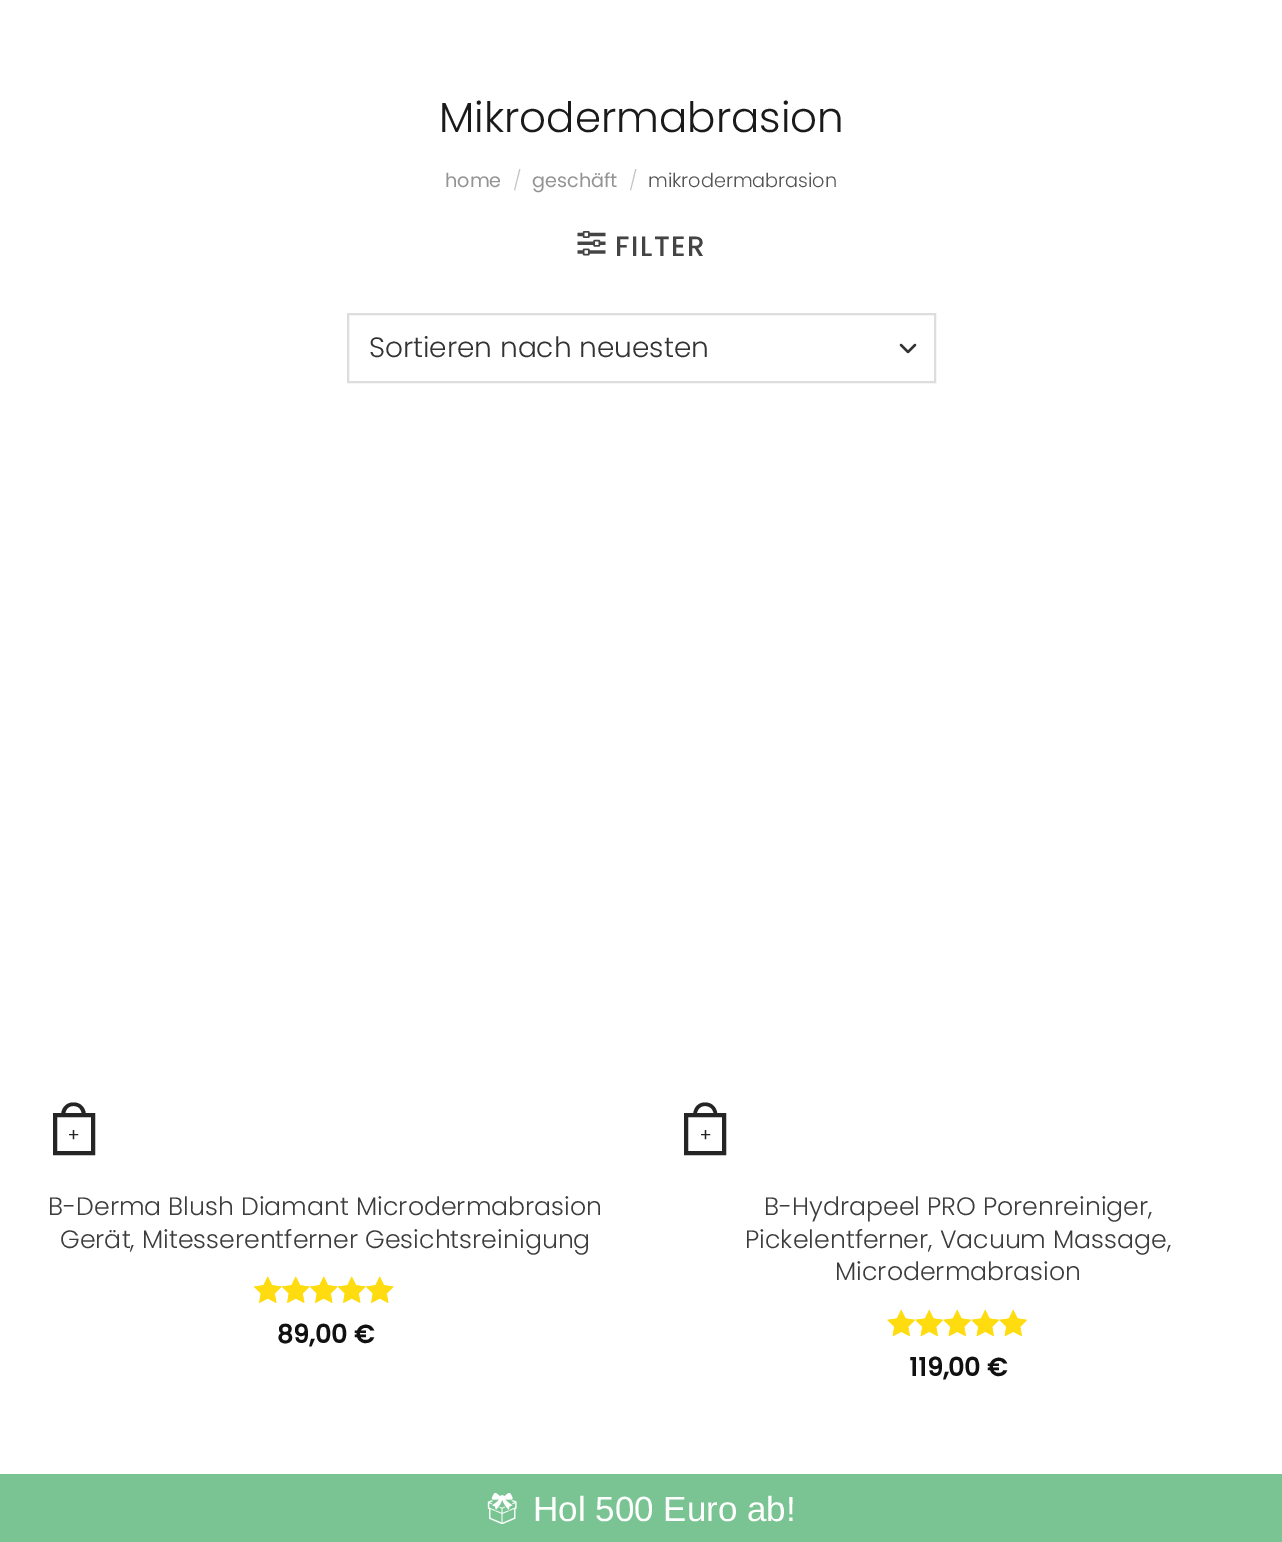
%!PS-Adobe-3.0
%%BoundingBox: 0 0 1282 1542
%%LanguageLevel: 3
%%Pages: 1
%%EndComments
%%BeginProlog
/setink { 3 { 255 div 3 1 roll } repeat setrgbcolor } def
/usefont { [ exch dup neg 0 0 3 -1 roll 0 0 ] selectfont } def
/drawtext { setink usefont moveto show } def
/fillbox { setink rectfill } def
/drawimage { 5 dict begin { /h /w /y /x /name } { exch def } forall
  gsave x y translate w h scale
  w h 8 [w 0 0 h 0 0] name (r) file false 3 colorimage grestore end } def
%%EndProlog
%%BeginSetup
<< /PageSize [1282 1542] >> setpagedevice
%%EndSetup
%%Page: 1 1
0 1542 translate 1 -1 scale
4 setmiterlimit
0 0 1282 1542 255 255 255 fillbox
(Mikrodermabrasion) 439 132 /Poppins-Light 42 26 26 26 drawtext
(home) 445 187 /Poppins-Regular 19.25 148 148 148 drawtext
(/) 513 187 /Poppins-Light 19.25 196 196 196 drawtext
(geschäft) 532 187 /Poppins-Regular 19.25 148 148 148 drawtext
(/) 629 187 /Poppins-Light 19.25 196 196 196 drawtext
(mikrodermabrasion) 648 187 /Poppins-Light 19.25 85 85 85 drawtext
(assets/img1.rgb) 577 231 29 25 drawimage
/Poppins-Medium 28 usefont
68 68 68 setink
615 256 moveto 1.5 0 (FILTER) ashow
51 51 51 setink
2.3 setlinewidth
1 setlinecap
1 setlinejoin
901 345 moveto 908 352 lineto 915 345 lineto stroke
221 221 221 setink
2 setlinewidth
0 setlinecap
0 setlinejoin
348 314 587 68 rectstroke
(Sortieren nach neuesten) 369 357 /Poppins-Light 28 51 51 51 drawtext
37 37 37 setink
4 setlinewidth
55 1115 38 38 rectstroke
73.5 1102.5 moveto 82 1102.5 86 1109 86 1116.5 curveto 61 1116.5 lineto 61 1109 65 1102.5 73.5 1102.5 curveto closepath 73.5 1106 moveto 80 1106 82 1111 82 1116.5 curveto 65 1116.5 lineto 65 1111 67 1106 73.5 1106 curveto closepath eofill
(+) 68 1141 /LiberationSans-Regular 19 37 37 37 drawtext
(B-Derma Blush Diamant Microdermabrasion) 48 1215 /Poppins-Light 25.2 61 61 61 drawtext
(Gerät, Mitesserentferner Gesichtsreinigung) 60 1248 /Poppins-Light 25.2 61 61 61 drawtext
(assets/img2.rgb) 254 1276 140 27 drawimage
(assets/img3.rgb) 254 1276 140 27 drawimage
(89,00 €) 277 1343 /Poppins-Bold 25.2 17 17 17 drawtext
37 37 37 setink
686 1115 38 38 rectstroke
705 1102.5 moveto 713.5 1102.5 717.5 1109 717.5 1116.5 curveto 693 1116.5 lineto 693 1109 697 1102.5 705 1102.5 curveto closepath 705 1106 moveto 711.5 1106 714 1111 714 1116.5 curveto 696.5 1116.5 lineto 696.5 1111 699 1106 705 1106 curveto closepath eofill
(+) 700 1141 /LiberationSans-Regular 19 37 37 37 drawtext
(B-Hydrapeel PRO Porenreiniger,) 764 1215 /Poppins-Light 25.2 61 61 61 drawtext
(Pickelentferner, Vacuum Massage,) 745 1248 /Poppins-Light 25.2 61 61 61 drawtext
(Microdermabrasion) 835 1280 /Poppins-Light 25.2 61 61 61 drawtext
(assets/img4.rgb) 887 1309 141 28 drawimage
(assets/img5.rgb) 887 1309 139 28 drawimage
(119,00 €) 909 1376 /Poppins-Bold 25.2 17 17 17 drawtext
0 1474 1282 68 121 196 146 fillbox
(assets/img6.rgb) 487 1493 30 31 drawimage
(Hol 500 Euro ab!) 533 1521 /LiberationSans-Regular 35 255 255 255 drawtext
showpage
%%EOF
